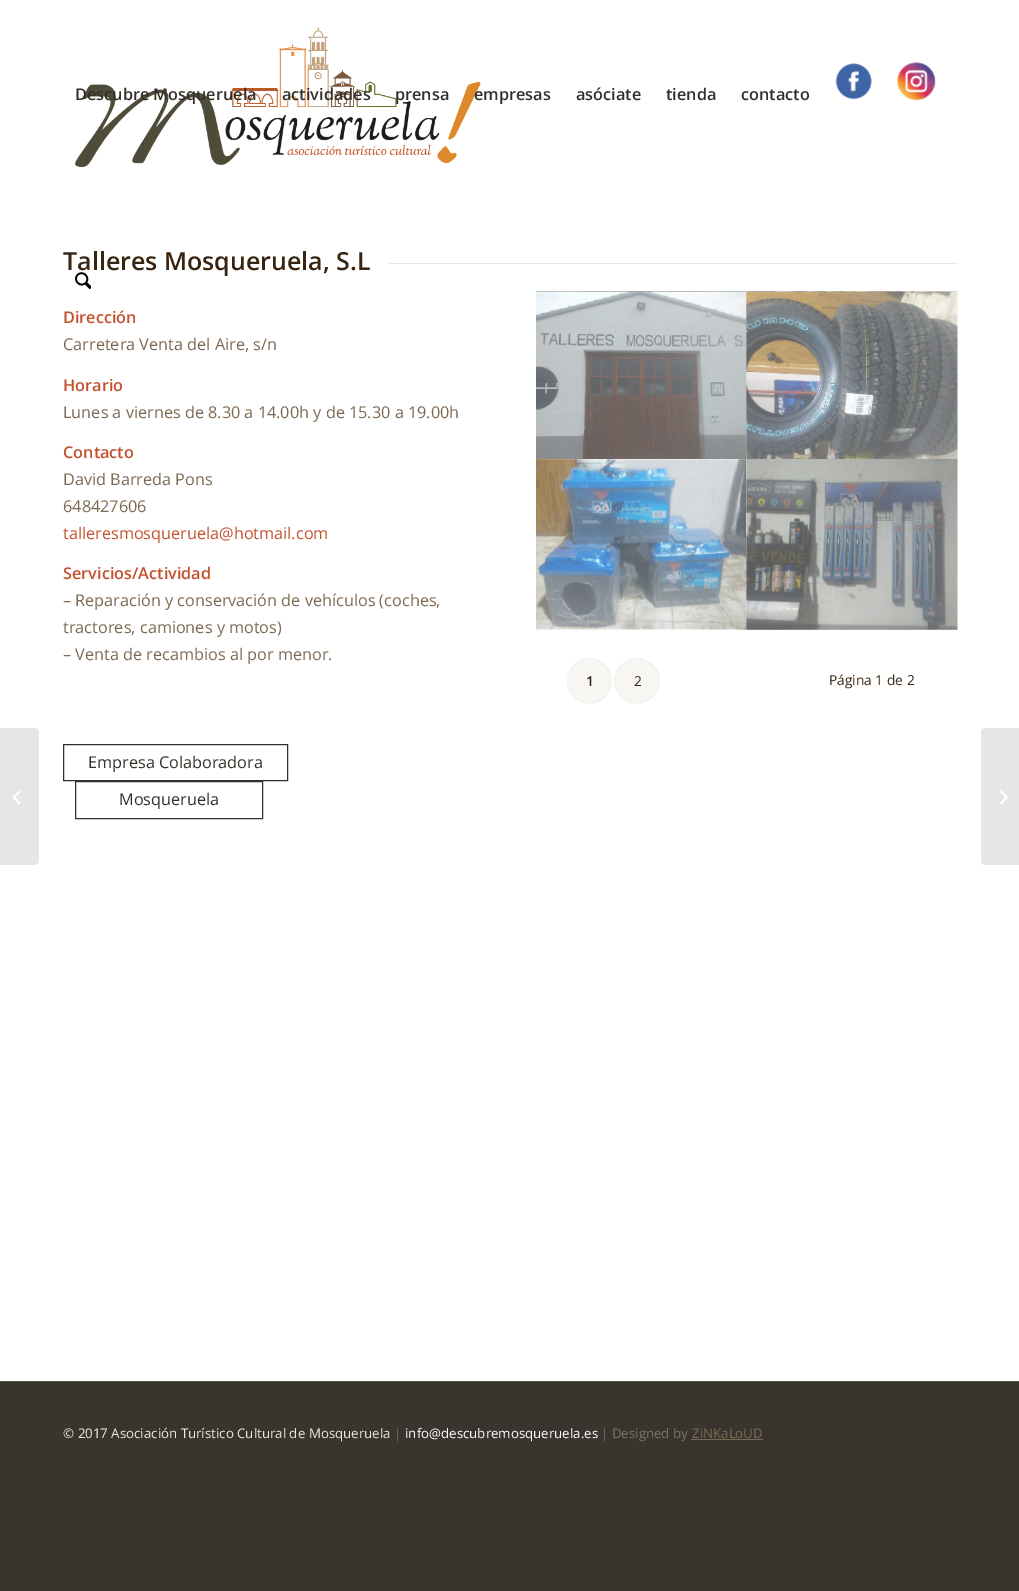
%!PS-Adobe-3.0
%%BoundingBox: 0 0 1019 1591
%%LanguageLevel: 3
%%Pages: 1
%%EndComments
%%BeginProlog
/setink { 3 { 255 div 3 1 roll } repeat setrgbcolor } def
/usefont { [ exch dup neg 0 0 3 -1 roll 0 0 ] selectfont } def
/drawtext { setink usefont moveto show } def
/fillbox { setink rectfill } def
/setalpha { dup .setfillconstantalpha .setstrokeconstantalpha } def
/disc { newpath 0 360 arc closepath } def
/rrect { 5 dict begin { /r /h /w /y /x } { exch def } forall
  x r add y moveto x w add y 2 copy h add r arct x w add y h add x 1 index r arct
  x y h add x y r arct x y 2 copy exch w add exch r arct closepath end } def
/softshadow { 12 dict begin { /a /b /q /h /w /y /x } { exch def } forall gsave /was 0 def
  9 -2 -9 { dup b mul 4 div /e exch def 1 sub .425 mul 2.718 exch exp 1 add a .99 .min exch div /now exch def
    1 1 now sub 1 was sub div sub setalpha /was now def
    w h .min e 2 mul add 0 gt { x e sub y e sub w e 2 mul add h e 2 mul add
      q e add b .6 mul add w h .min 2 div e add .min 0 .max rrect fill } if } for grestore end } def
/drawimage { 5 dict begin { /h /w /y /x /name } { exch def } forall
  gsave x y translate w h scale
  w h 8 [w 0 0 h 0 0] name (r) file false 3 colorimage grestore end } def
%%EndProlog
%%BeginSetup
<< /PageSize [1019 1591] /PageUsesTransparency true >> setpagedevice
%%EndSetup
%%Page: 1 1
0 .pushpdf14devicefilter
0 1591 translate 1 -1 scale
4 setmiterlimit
0 0 1019 1591 57 52 45 fillbox
0 0 1019 1381 255 255 255 fillbox
(assets/img1.rgb) 75 27 406 141 drawimage
(Descubre Mosqueruela) 75 100 /OpenSans-SemiBold 16.25 52 47 41 drawtext
(actividades) 282 100 /OpenSans-SemiBold 16.25 52 47 41 drawtext
(prensa) 395 100 /OpenSans-SemiBold 16.25 52 47 41 drawtext
(empresas) 474 100 /OpenSans-SemiBold 16.25 52 47 41 drawtext
(asóciate) 576 100 /OpenSans-SemiBold 16.25 52 47 41 drawtext
(tienda) 666 100 /OpenSans-SemiBold 16.25 52 47 41 drawtext
(contacto) 741 100 /OpenSans-SemiBold 16.25 52 47 41 drawtext
(assets/img2.rgb) 835 63 37 37 drawimage
(assets/img3.rgb) 896 62 40 39 drawimage
(Talleres Mosqueruela, S.L) 63 270 /OpenSans-SemiBold 25 56 36 16 drawtext
(assets/img4.rgb) 75 272 16 17 drawimage
230 230 230 setink
0 728 moveto 34 728 lineto 37 728 39 730 39 733 curveto 39 860 lineto 39 863 37 865 34 865 curveto 0 865 lineto closepath fill
(assets/img5.rgb) 13 790 7 15 drawimage
389 263 569 1 235 232 229 fillbox
(Dirección) 63 323 /OpenSans-SemiBold 16.25 195 81 47 drawtext
(Carretera Venta del Aire, s/n) 63 350 /OpenSans-Regular 16.25 124 104 83 drawtext
(Horario) 63 391 /OpenSans-SemiBold 16.25 195 81 47 drawtext
(Lunes a viernes de 8.30 a 14.00h y de 15.30 a 19.00h) 63 418 /OpenSans-Regular 16.25 124 104 83 drawtext
(Contacto) 63 458 /OpenSans-SemiBold 16.25 195 81 47 drawtext
(David Barreda Pons) 63 485 /OpenSans-Regular 16.25 124 104 83 drawtext
(648427606) 63 512 /OpenSans-Regular 16.25 124 104 83 drawtext
(talleresmosqueruela@hotmail.com) 63 539 /OpenSans-Regular 16.25 195 81 47 drawtext
(Servicios/Actividad) 63 579 /OpenSans-SemiBold 16.25 195 81 47 drawtext
(– Reparación y conservación de vehículos \(coches,) 63 606 /OpenSans-Regular 16.25 124 104 83 drawtext
(tractores, camiones y motos\)) 63 633 /OpenSans-Regular 16.25 124 104 83 drawtext
(– Venta de recambios al por menor.) 63 660 /OpenSans-Regular 16.25 124 104 83 drawtext
52 47 41 setink
63.5 744.5 224 36 rectstroke
(Empresa Colaboradora) 88 768 /OpenSans-Regular 16.25 52 47 41 drawtext
75.5 781.5 187 37 rectstroke
(Mosqueruela) 119 805 /OpenSans-Regular 16.25 52 47 41 drawtext
(assets/img6.rgb) 536 291 210 168 drawimage
(assets/img7.rgb) 746 291 212 168 drawimage
(assets/img8.rgb) 536 459 210 171 drawimage
(assets/img9.rgb) 746 459 212 171 drawimage
0 0 0 setink
568 659 43 44 21.5 0.5 0.2 softshadow
248 246 242 setink
568 659 43 44 21.5 rrect fill
(1) 586 686 /OpenSans-SemiBold 13.75 56 36 16 drawtext
0 0 0 setink
615 659 44 44 22 0.5 0.2 softshadow
248 246 242 setink
637 681 22 disc fill
(2) 634 686 /OpenSans-Regular 13.75 56 36 16 drawtext
(Página 1 de 2) 829 685 /OpenSans-Regular 13.75 56 36 16 drawtext
0 1381 1019 1 87 81 73 fillbox
(© 2017 Asociación Turístico Cultural de Mosqueruela) 63 1438 /OpenSans-Regular 13.3 235 232 226 drawtext
(|) 394 1438 /OpenSans-Regular 13.3 123 115 104 drawtext
(info@descubremosqueruela.es) 405 1438 /OpenSans-Regular 13.3 255 255 255 drawtext
(| Designed by) 601 1438 /OpenSans-Regular 13.3 123 115 104 drawtext
(ZiNKaLoUD) 692 1438 /OpenSans-Regular 13.3 124 104 83 drawtext
691 1439 72 1 124 104 83 fillbox
230 230 230 setink
986 728 moveto 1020 728 lineto 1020 865 lineto 986 865 lineto 983 865 981 863 981 860 curveto 981 733 lineto 981 730 983 728 986 728 curveto closepath fill
(assets/img10.rgb) 1000 790 8 15 drawimage
.poppdf14devicefilter showpage
%%EOF
